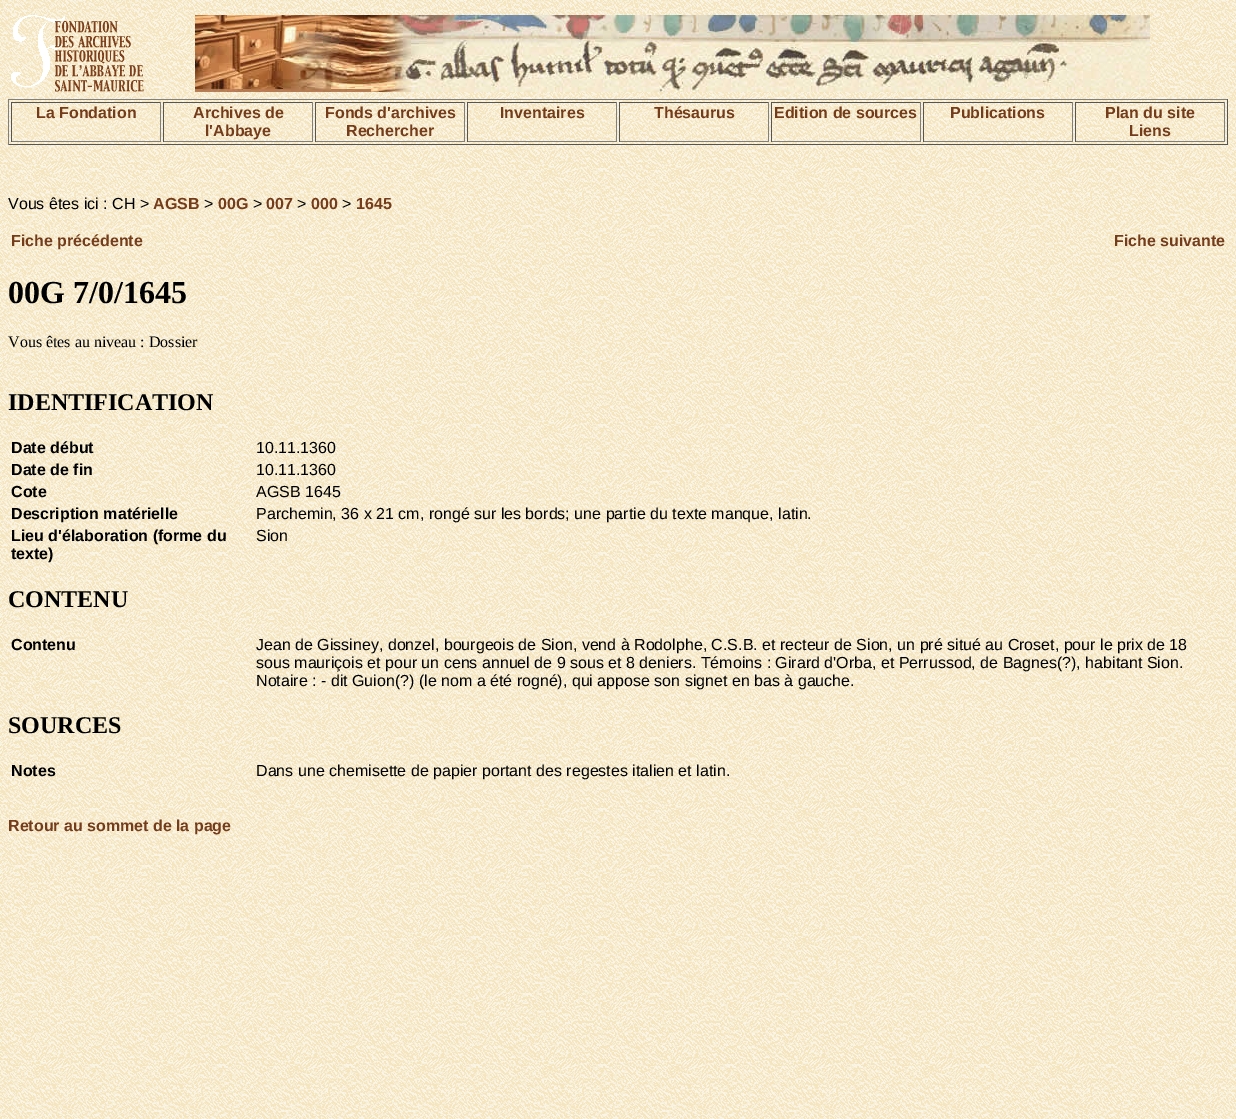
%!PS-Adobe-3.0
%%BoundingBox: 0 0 1236 1119
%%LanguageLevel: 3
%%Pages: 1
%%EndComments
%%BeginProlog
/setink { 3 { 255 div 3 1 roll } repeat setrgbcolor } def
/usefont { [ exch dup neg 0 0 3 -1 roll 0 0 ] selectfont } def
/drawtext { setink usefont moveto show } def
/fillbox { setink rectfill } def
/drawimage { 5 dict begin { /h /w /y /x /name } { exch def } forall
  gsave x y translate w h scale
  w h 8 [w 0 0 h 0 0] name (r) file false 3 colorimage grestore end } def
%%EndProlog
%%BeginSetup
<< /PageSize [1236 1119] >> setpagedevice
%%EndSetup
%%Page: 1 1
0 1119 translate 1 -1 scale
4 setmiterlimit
0 0 1236 1119 255 255 255 fillbox
(assets/img1.rgb) 0 0 1236 1119 drawimage
(assets/img2.rgb) 11 15 133 77 drawimage
(assets/img3.rgb) 195 15 955 77 drawimage
8 99 1220 1 128 128 128 fillbox
1227 99 1 46 85 85 85 fillbox
8 144 1220 1 85 85 85 fillbox
8 99 1 46 128 128 128 fillbox
11 102 150 1 85 85 85 fillbox
160 102 1 40 128 128 128 fillbox
11 141 150 1 128 128 128 fillbox
11 102 1 40 85 85 85 fillbox
(La Fondation) 36 118 /LiberationSans-Bold 16 116 60 27 drawtext
163 102 150 1 85 85 85 fillbox
312 102 1 40 128 128 128 fillbox
163 141 150 1 128 128 128 fillbox
163 102 1 40 85 85 85 fillbox
(Archives de) 193 118 /LiberationSans-Bold 16 116 60 27 drawtext
(l'Abbaye) 205 136 /LiberationSans-Bold 16 116 60 27 drawtext
315 102 150 1 85 85 85 fillbox
464 102 1 40 128 128 128 fillbox
315 141 150 1 128 128 128 fillbox
315 102 1 40 85 85 85 fillbox
(Fonds d'archives) 325 118 /LiberationSans-Bold 16 116 60 27 drawtext
(Rechercher) 346 136 /LiberationSans-Bold 16 116 60 27 drawtext
467 102 150 1 85 85 85 fillbox
616 102 1 40 128 128 128 fillbox
467 141 150 1 128 128 128 fillbox
467 102 1 40 85 85 85 fillbox
(Inventaires) 500 118 /LiberationSans-Bold 16 116 60 27 drawtext
619 102 150 1 85 85 85 fillbox
768 102 1 40 128 128 128 fillbox
619 141 150 1 128 128 128 fillbox
619 102 1 40 85 85 85 fillbox
(Thésaurus) 654 118 /LiberationSans-Bold 16 116 60 27 drawtext
771 102 150 1 85 85 85 fillbox
920 102 1 40 128 128 128 fillbox
771 141 150 1 128 128 128 fillbox
771 102 1 40 85 85 85 fillbox
(Edition de sources) 774 118 /LiberationSans-Bold 16 116 60 27 drawtext
923 102 150 1 85 85 85 fillbox
1072 102 1 40 128 128 128 fillbox
923 141 150 1 128 128 128 fillbox
923 102 1 40 85 85 85 fillbox
(Publications) 950 118 /LiberationSans-Bold 16 116 60 27 drawtext
1075 102 150 1 85 85 85 fillbox
1224 102 1 40 128 128 128 fillbox
1075 141 150 1 128 128 128 fillbox
1075 102 1 40 85 85 85 fillbox
(Plan du site) 1105 118 /LiberationSans-Bold 16 116 60 27 drawtext
(Liens) 1129 136 /LiberationSans-Bold 16 116 60 27 drawtext
(Vous êtes ici : CH >) 8 209 /LiberationSans-Regular 16 0 0 0 drawtext
(AGSB) 153 209 /LiberationSans-Bold 16 116 60 27 drawtext
(>) 204 209 /LiberationSans-Regular 16 0 0 0 drawtext
(00G) 218 209 /LiberationSans-Bold 16 116 60 27 drawtext
(>) 253 209 /LiberationSans-Regular 16 0 0 0 drawtext
(007) 266 209 /LiberationSans-Bold 16 116 60 27 drawtext
(>) 297 209 /LiberationSans-Regular 16 0 0 0 drawtext
(000) 311 209 /LiberationSans-Bold 16 116 60 27 drawtext
(>) 342 209 /LiberationSans-Regular 16 0 0 0 drawtext
(1645) 356 209 /LiberationSans-Bold 16 116 60 27 drawtext
(Fiche précédente) 11 246 /LiberationSans-Bold 16 116 60 27 drawtext
(Fiche suivante) 1114 246 /LiberationSans-Bold 16 116 60 27 drawtext
(00G 7/0/1645) 8 303 /LiberationSerif-Bold 32 0 0 0 drawtext
(Vous êtes au niveau : Dossier) 8 347 /LiberationSerif-Regular 16 0 0 0 drawtext
(IDENTIFICATION) 8 410 /LiberationSerif-Bold 24 0 0 0 drawtext
(Date début) 11 453 /LiberationSans-Bold 16 0 0 0 drawtext
(10.11.1360) 256 453 /LiberationSans-Regular 16 0 0 0 drawtext
(Date de fin) 11 475 /LiberationSans-Bold 16 0 0 0 drawtext
(10.11.1360) 256 475 /LiberationSans-Regular 16 0 0 0 drawtext
(Cote) 11 497 /LiberationSans-Bold 16 0 0 0 drawtext
(AGSB 1645) 256 497 /LiberationSans-Regular 16 0 0 0 drawtext
(Description matérielle) 11 519 /LiberationSans-Bold 16 0 0 0 drawtext
(Parchemin, 36 x 21 cm, rongé sur les bords; une partie du texte manque, latin.) 256 519 /LiberationSans-Regular 16 0 0 0 drawtext
(Lieu d'élaboration \(forme du) 11 541 /LiberationSans-Bold 16 0 0 0 drawtext
(texte\)) 11 559 /LiberationSans-Bold 16 0 0 0 drawtext
(Sion) 256 541 /LiberationSans-Regular 16 0 0 0 drawtext
(CONTENU) 8 607 /LiberationSerif-Bold 24 0 0 0 drawtext
(Contenu) 11 650 /LiberationSans-Bold 16 0 0 0 drawtext
(Jean de Gissiney, donzel, bourgeois de Sion, vend à Rodolphe, C.S.B. et recteur de Sion, un pré situé au Croset, pour le prix de 18) 256 650 /LiberationSans-Regular 16 0 0 0 drawtext
(sous mauriçois et pour un cens annuel de 9 sous et 8 deniers. Témoins : Girard d'Orba, et Perrussod, de Bagnes\(?\), habitant Sion.) 256 668 /LiberationSans-Regular 16 0 0 0 drawtext
(Notaire : - dit Guion\(?\) \(le nom a été rogné\), qui appose son signet en bas à gauche.) 256 686 /LiberationSans-Regular 16 0 0 0 drawtext
(SOURCES) 8 733 /LiberationSerif-Bold 24 0 0 0 drawtext
(Notes) 11 776 /LiberationSans-Bold 16 0 0 0 drawtext
(Dans une chemisette de papier portant des regestes italien et latin.) 256 776 /LiberationSans-Regular 16 0 0 0 drawtext
(Retour au sommet de la page) 8 831 /LiberationSans-Bold 16 116 60 27 drawtext
showpage
%%EOF
